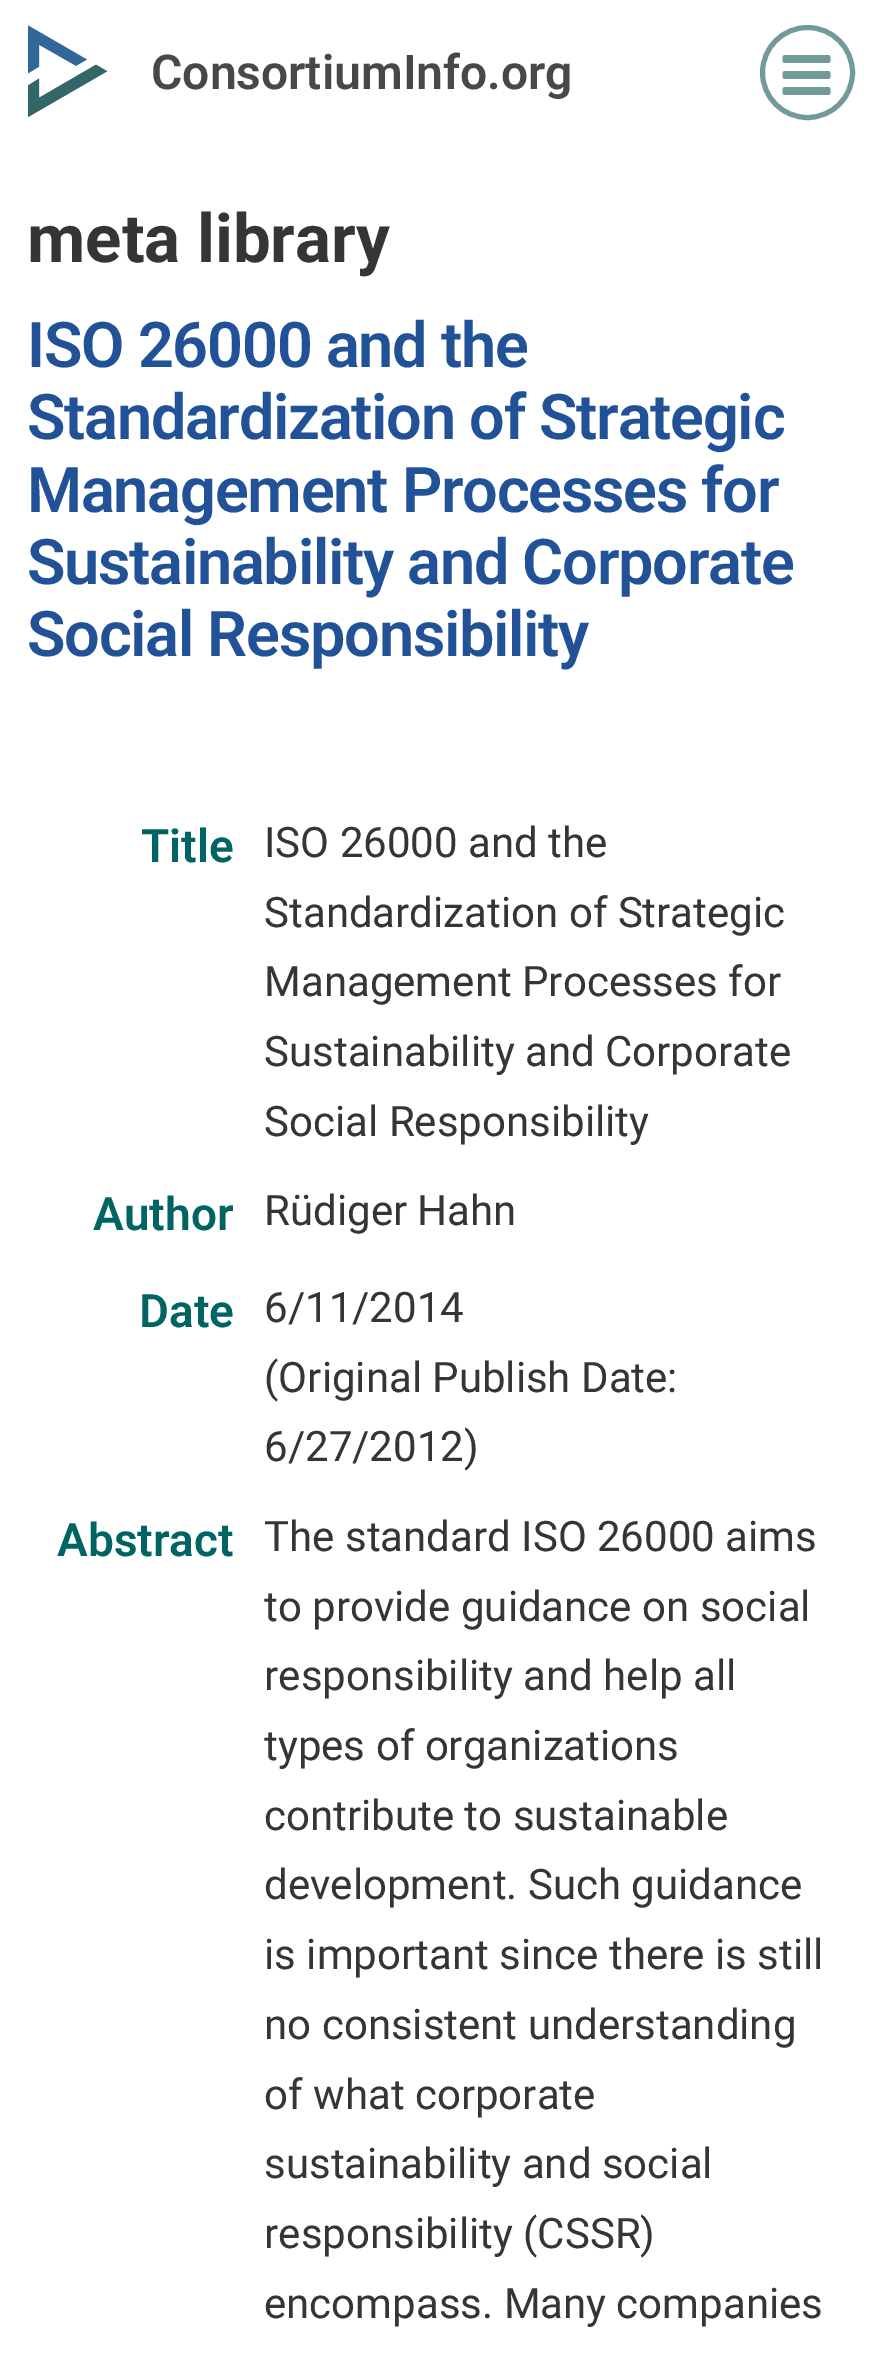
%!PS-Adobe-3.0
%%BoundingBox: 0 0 889 2379
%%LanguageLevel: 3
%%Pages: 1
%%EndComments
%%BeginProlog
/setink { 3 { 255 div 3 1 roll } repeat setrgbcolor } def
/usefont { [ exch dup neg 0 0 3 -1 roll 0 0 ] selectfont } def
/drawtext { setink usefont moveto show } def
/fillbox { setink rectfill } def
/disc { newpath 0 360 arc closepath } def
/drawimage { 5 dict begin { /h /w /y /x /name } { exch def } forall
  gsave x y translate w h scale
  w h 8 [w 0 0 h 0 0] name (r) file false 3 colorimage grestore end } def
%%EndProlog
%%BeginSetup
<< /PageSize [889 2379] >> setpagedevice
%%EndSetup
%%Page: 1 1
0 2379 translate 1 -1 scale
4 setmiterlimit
0 0 889 2379 255 255 255 fillbox
(assets/img1.rgb) 28 25 80 93 drawimage
(ConsortiumInfo.org) 151 89 /Roboto-SemiBold 48 72 72 72 drawtext
115 154 155 setink
5 setlinewidth
807.5 72.5 45 disc stroke
(assets/img2.rgb) 782 55 49 40 drawimage
(meta library) 27 262 /Roboto-Bold 67.25 52 53 52 drawtext
/Roboto-SemiBold 63 usefont
33 82 152 setink
27 367 moveto -1.25 0 (ISO 26000 and the) ashow
27 439 moveto -1.25 0 (Standardization of Strategic) ashow
27 512 moveto -1.25 0 (Management Processes for) ashow
27 584 moveto -1.25 0 (Sustainability and Corporate) ashow
27 656 moveto -1.25 0 (Social Responsibility) ashow
(Title) 141 862 /Roboto-SemiBold 46 0 100 99 drawtext
(ISO 26000 and the) 264 857 /Roboto-Regular 42 52 53 52 drawtext
(Standardization of Strategic) 264 927 /Roboto-Regular 42 52 53 52 drawtext
(Management Processes for) 264 996 /Roboto-Regular 42 52 53 52 drawtext
(Sustainability and Corporate) 264 1066 /Roboto-Regular 42 52 53 52 drawtext
(Social Responsibility) 264 1136 /Roboto-Regular 42 52 53 52 drawtext
(Author) 93 1230 /Roboto-SemiBold 46 0 100 99 drawtext
(Rüdiger Hahn) 264 1225 /Roboto-Regular 42 52 53 52 drawtext
(Date) 139 1327 /Roboto-SemiBold 46 0 100 99 drawtext
(6/11/2014) 264 1322 /Roboto-Regular 42 52 53 52 drawtext
(\(Original Publish Date:) 264 1392 /Roboto-Regular 42 52 53 52 drawtext
(6/27/2012\)) 264 1461 /Roboto-Regular 42 52 53 52 drawtext
(Abstract) 57 1556 /Roboto-SemiBold 46 0 100 99 drawtext
(The standard ISO 26000 aims) 264 1551 /Roboto-Regular 42 52 53 52 drawtext
(to provide guidance on social) 264 1621 /Roboto-Regular 42 52 53 52 drawtext
(responsibility and help all) 264 1690 /Roboto-Regular 42 52 53 52 drawtext
(types of organizations) 264 1760 /Roboto-Regular 42 52 53 52 drawtext
(contribute to sustainable) 264 1830 /Roboto-Regular 42 52 53 52 drawtext
(development. Such guidance) 264 1899 /Roboto-Regular 42 52 53 52 drawtext
(is important since there is still) 264 1969 /Roboto-Regular 42 52 53 52 drawtext
(no consistent understanding) 264 2039 /Roboto-Regular 42 52 53 52 drawtext
(of what corporate) 264 2109 /Roboto-Regular 42 52 53 52 drawtext
(sustainability and social) 264 2178 /Roboto-Regular 42 52 53 52 drawtext
(responsibility \(CSSR\)) 264 2248 /Roboto-Regular 42 52 53 52 drawtext
(encompass. Many companies) 264 2318 /Roboto-Regular 42 52 53 52 drawtext
showpage
%%EOF
